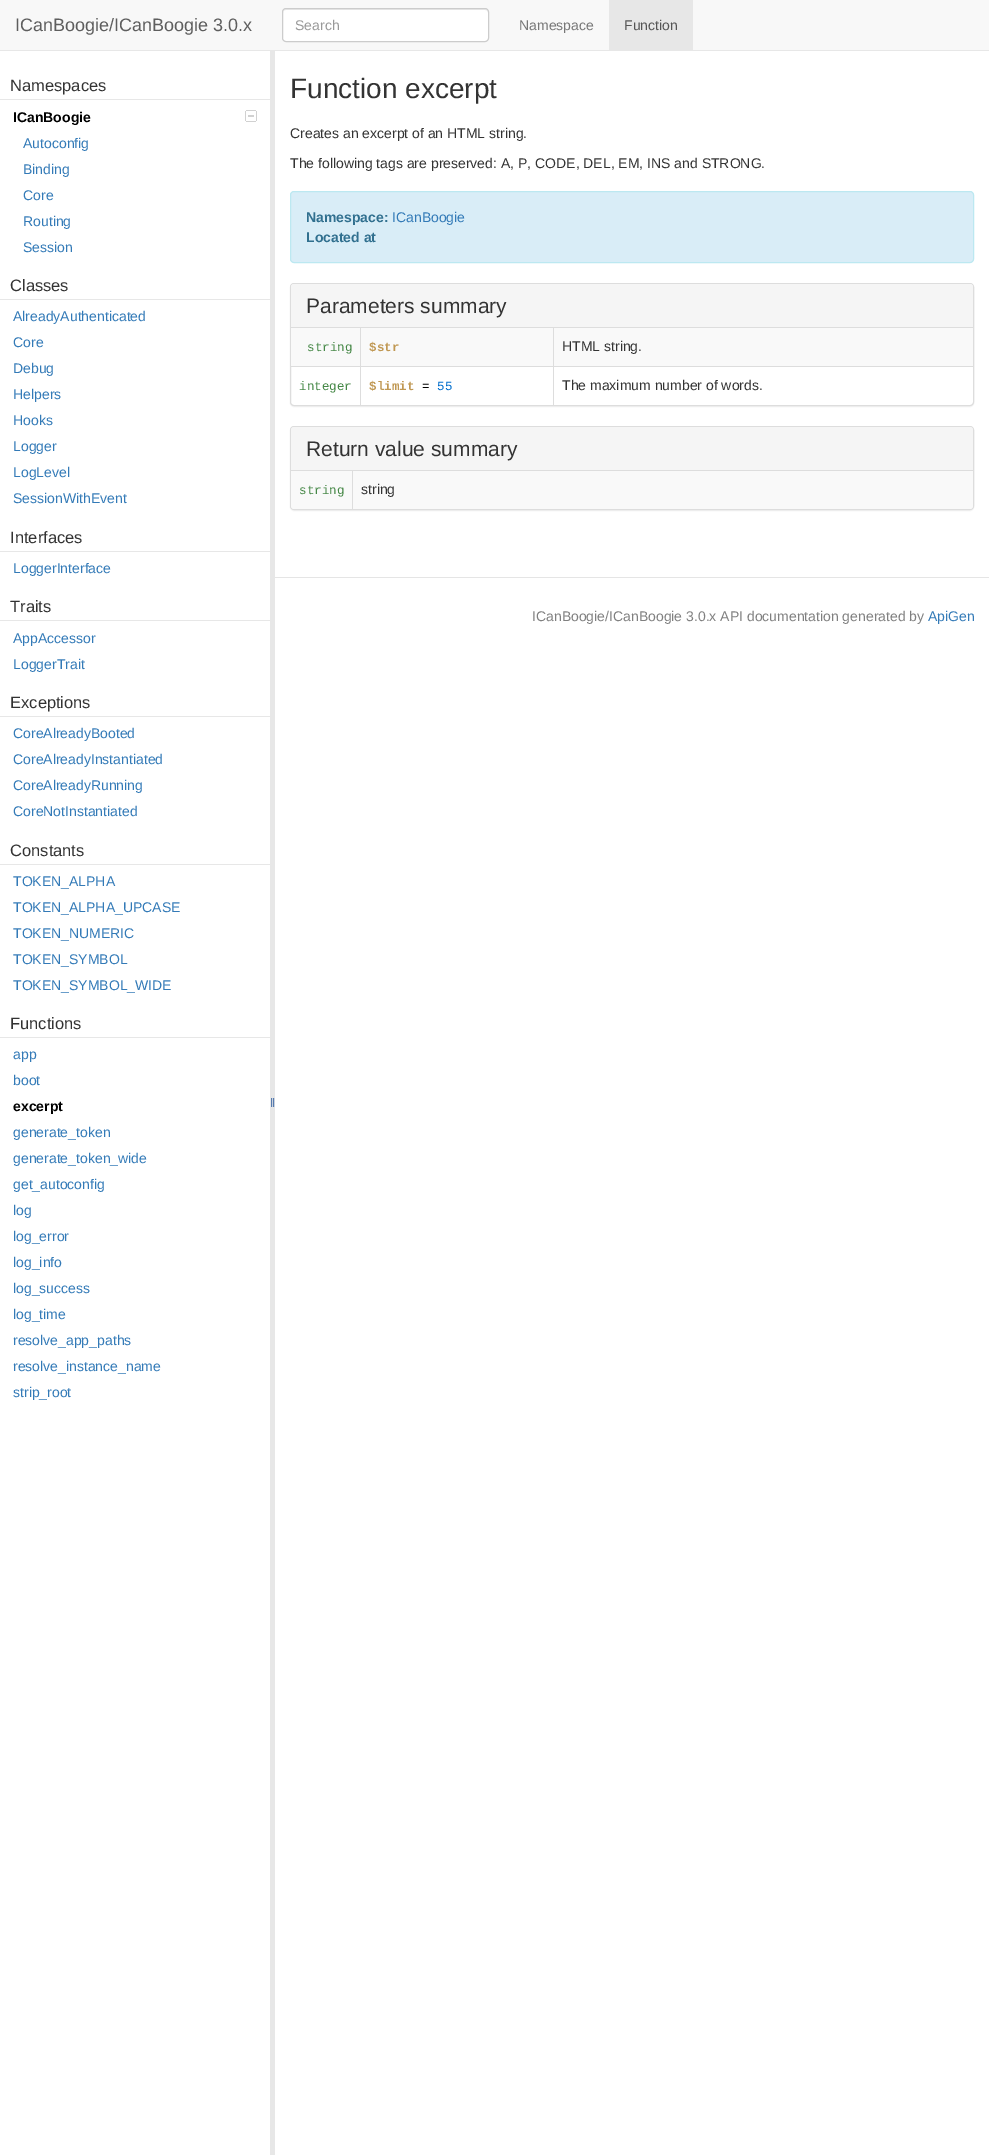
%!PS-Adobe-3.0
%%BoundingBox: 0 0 989 2155
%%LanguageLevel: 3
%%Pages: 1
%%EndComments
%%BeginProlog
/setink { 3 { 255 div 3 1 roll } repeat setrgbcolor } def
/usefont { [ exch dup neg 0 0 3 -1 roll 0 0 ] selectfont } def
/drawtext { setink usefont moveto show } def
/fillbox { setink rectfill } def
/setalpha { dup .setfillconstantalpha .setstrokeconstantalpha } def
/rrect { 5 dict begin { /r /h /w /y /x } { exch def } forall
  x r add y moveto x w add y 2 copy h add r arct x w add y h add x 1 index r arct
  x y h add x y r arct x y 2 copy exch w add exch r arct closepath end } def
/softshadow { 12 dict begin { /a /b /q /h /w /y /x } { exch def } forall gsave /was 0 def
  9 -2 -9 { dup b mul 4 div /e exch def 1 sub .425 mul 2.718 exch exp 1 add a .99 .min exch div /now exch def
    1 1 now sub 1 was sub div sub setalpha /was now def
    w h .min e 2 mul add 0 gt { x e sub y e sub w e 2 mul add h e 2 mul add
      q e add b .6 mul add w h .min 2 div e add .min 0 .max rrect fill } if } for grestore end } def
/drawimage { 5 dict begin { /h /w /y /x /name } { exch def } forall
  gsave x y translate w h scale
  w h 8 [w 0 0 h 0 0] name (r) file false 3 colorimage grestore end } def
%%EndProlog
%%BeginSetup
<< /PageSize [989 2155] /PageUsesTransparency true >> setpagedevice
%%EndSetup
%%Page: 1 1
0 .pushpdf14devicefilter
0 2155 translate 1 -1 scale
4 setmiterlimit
0 0 989 2155 255 255 255 fillbox
0 0 989 50 248 248 248 fillbox
270 50 5 2105 231 231 231 fillbox
0 50 989 1 231 231 231 fillbox
(ICanBoogie/ICanBoogie 3.0.x) 15 31 /LiberationSans-Regular 18 94 94 94 drawtext
255 255 255 setink
282 8 207 34 4 rrect fill
236 236 236 setink
286 10 moveto 485 10 lineto 487 10 488 11 488 13 curveto 488 11 487 9 485 9 curveto 286 9 lineto 284 9 283 11 283 13 curveto 283 11 284 10 286 10 curveto closepath fill
204 204 204 setink
282.5 8.5 206 33 3.5 rrect stroke
(Search) 295 30 /LiberationSans-Regular 14 153 153 153 drawtext
(Namespace) 519 30 /LiberationSans-Regular 14 119 119 119 drawtext
609 0 84 50 231 231 231 fillbox
(Function) 624 30 /LiberationSans-Regular 14 85 85 85 drawtext
0 99 270 1 231 231 231 fillbox
(Namespaces) 10 91 /LiberationSans-Regular 16.5 51 51 51 drawtext
(ICanBoogie) 13 122 /LiberationSans-Bold 14 0 0 0 drawtext
(assets/img1.rgb) 245 110 12 12 drawimage
(Autoconfig) 23 148 /LiberationSans-Regular 14 51 122 183 drawtext
(Binding) 23 174 /LiberationSans-Regular 14 51 122 183 drawtext
(Core) 23 200 /LiberationSans-Regular 14 51 122 183 drawtext
(Routing) 23 226 /LiberationSans-Regular 14 51 122 183 drawtext
(Session) 23 252 /LiberationSans-Regular 14 51 122 183 drawtext
0 299 270 1 231 231 231 fillbox
(Classes) 10 291 /LiberationSans-Regular 16.5 51 51 51 drawtext
(AlreadyAuthenticated) 13 321 /LiberationSans-Regular 14 51 122 183 drawtext
(Core) 13 347 /LiberationSans-Regular 14 51 122 183 drawtext
(Debug) 13 373 /LiberationSans-Regular 14 51 122 183 drawtext
(Helpers) 13 399 /LiberationSans-Regular 14 51 122 183 drawtext
(Hooks) 13 425 /LiberationSans-Regular 14 51 122 183 drawtext
(Logger) 13 451 /LiberationSans-Regular 14 51 122 183 drawtext
(LogLevel) 13 477 /LiberationSans-Regular 14 51 122 183 drawtext
(SessionWithEvent) 13 503 /LiberationSans-Regular 14 51 122 183 drawtext
0 551 270 1 231 231 231 fillbox
(Interfaces) 10 543 /LiberationSans-Regular 16.5 51 51 51 drawtext
(LoggerInterface) 13 573 /LiberationSans-Regular 14 51 122 183 drawtext
0 620 270 1 231 231 231 fillbox
(Traits) 10 612 /LiberationSans-Regular 16.5 51 51 51 drawtext
(AppAccessor) 13 643 /LiberationSans-Regular 14 51 122 183 drawtext
(LoggerTrait) 13 669 /LiberationSans-Regular 14 51 122 183 drawtext
0 716 270 1 231 231 231 fillbox
(Exceptions) 10 708 /LiberationSans-Regular 16.5 51 51 51 drawtext
(CoreAlreadyBooted) 13 738 /LiberationSans-Regular 14 51 122 183 drawtext
(CoreAlreadyInstantiated) 13 764 /LiberationSans-Regular 14 51 122 183 drawtext
(CoreAlreadyRunning) 13 790 /LiberationSans-Regular 14 51 122 183 drawtext
(CoreNotInstantiated) 13 816 /LiberationSans-Regular 14 51 122 183 drawtext
0 864 270 1 231 231 231 fillbox
(Constants) 10 856 /LiberationSans-Regular 16.5 51 51 51 drawtext
(TOKEN_ALPHA) 13 886 /LiberationSans-Regular 14 51 122 183 drawtext
(TOKEN_ALPHA_UPCASE) 13 912 /LiberationSans-Regular 14 51 122 183 drawtext
(TOKEN_NUMERIC) 13 938 /LiberationSans-Regular 14 51 122 183 drawtext
(TOKEN_SYMBOL) 13 964 /LiberationSans-Regular 14 51 122 183 drawtext
(TOKEN_SYMBOL_WIDE) 13 990 /LiberationSans-Regular 14 51 122 183 drawtext
0 1037 270 1 231 231 231 fillbox
(Functions) 10 1029 /LiberationSans-Regular 16.5 51 51 51 drawtext
(app) 13 1059 /LiberationSans-Regular 14 51 122 183 drawtext
(boot) 13 1085 /LiberationSans-Regular 14 51 122 183 drawtext
(excerpt) 13 1111 /LiberationSans-Bold 14 0 0 0 drawtext
(generate_token) 13 1137 /LiberationSans-Regular 14 51 122 183 drawtext
(generate_token_wide) 13 1163 /LiberationSans-Regular 14 51 122 183 drawtext
(get_autoconfig) 13 1189 /LiberationSans-Regular 14 51 122 183 drawtext
(log) 13 1215 /LiberationSans-Regular 14 51 122 183 drawtext
(log_error) 13 1241 /LiberationSans-Regular 14 51 122 183 drawtext
(log_info) 13 1267 /LiberationSans-Regular 14 51 122 183 drawtext
(log_success) 13 1293 /LiberationSans-Regular 14 51 122 183 drawtext
(log_time) 13 1319 /LiberationSans-Regular 14 51 122 183 drawtext
(resolve_app_paths) 13 1345 /LiberationSans-Regular 14 51 122 183 drawtext
(resolve_instance_name) 13 1371 /LiberationSans-Regular 14 51 122 183 drawtext
(strip_root) 13 1397 /LiberationSans-Regular 14 51 122 183 drawtext
(assets/img2.rgb) 271 1098 4 9 drawimage
(Function excerpt) 290 98 /LiberationSans-Regular 28 51 51 51 drawtext
(Creates an excerpt of an HTML string.) 290 138 /LiberationSans-Regular 14 51 51 51 drawtext
(The following tags are preserved: A, P, CODE, DEL, EM, INS and STRONG.) 290 168 /LiberationSans-Regular 14 51 51 51 drawtext
217 237 247 setink
290.5 191.5 683 71 3.5 rrect gsave fill grestore
188 232 241 setink
stroke
(Namespace:) 306 222 /LiberationSans-Bold 14 49 112 143 drawtext
(ICanBoogie) 392 222 /LiberationSans-Regular 14 51 122 183 drawtext
(Located at) 306 242 /LiberationSans-Bold 14 49 112 143 drawtext
0 0 0 setink
290 284 684 123 4 0.5 0.05 softshadow
255 255 255 setink
290.5 283.5 683 122 3.5 rrect gsave fill grestore
221 221 221 setink
stroke
245 245 245 setink
294 284 moveto 970 284 lineto 971.5 284 973 285.5 973 287 curveto 973 328 lineto 291 328 lineto 291 287 lineto 291 285.5 292.5 284 294 284 curveto closepath fill
291 327 682 1 221 221 221 fillbox
(Parameters summary) 306 313 /LiberationSans-Regular 21 51 51 51 drawtext
291 328 682 38 249 249 249 fillbox
(string) 307 351 /LiberationMono-Regular 12.5 70 136 71 drawtext
553 366 421 1 221 221 221 fillbox
553 366 1 40 221 221 221 fillbox
360 366 194 1 221 221 221 fillbox
360 366 1 40 221 221 221 fillbox
291 366 70 1 221 221 221 fillbox
360 328 1 39 221 221 221 fillbox
($str) 369 351 /LiberationMono-Bold 12.5 192 152 83 drawtext
553 328 1 39 221 221 221 fillbox
(HTML string.) 562 351 /LiberationSans-Regular 14 51 51 51 drawtext
(integer) 299 390 /LiberationMono-Regular 12.5 70 136 71 drawtext
($limit) 369 390 /LiberationMono-Bold 12.5 192 152 83 drawtext
(=) 422 390 /LiberationMono-Regular 12.5 0 0 0 drawtext
(55) 437 390 /LiberationMono-Regular 12.5 0 109 204 drawtext
(The maximum number of words.) 562 390 /LiberationSans-Regular 14 51 51 51 drawtext
0 0 0 setink
290 427 684 84 4 0.5 0.05 softshadow
221 221 221 setink
290.5 426.5 683 83 3.5 rrect stroke
245 245 245 setink
294 427 moveto 970 427 lineto 971.5 427 973 428.5 973 430 curveto 973 471 lineto 291 471 lineto 291 430 lineto 291 428.5 292.5 427 294 427 curveto closepath fill
291 470 682 1 221 221 221 fillbox
(Return value summary) 306 456 /LiberationSans-Regular 21 51 51 51 drawtext
249 249 249 setink
291 471 moveto 973 471 lineto 973 506 lineto 973 507.5 971.5 509 970 509 curveto 294 509 lineto 292.5 509 291 507.5 291 506 curveto closepath fill
(string) 299 494 /LiberationMono-Regular 12.5 70 136 71 drawtext
352 471 1 39 221 221 221 fillbox
(string) 361 494 /LiberationSans-Regular 14 51 51 51 drawtext
275 577 714 1 229 229 229 fillbox
(ICanBoogie/ICanBoogie 3.0.x API documentation generated by) 532 621 /LiberationSans-Regular 14 128 128 128 drawtext
(ApiGen) 928 621 /LiberationSans-Regular 14 51 122 183 drawtext
.poppdf14devicefilter showpage
%%EOF
